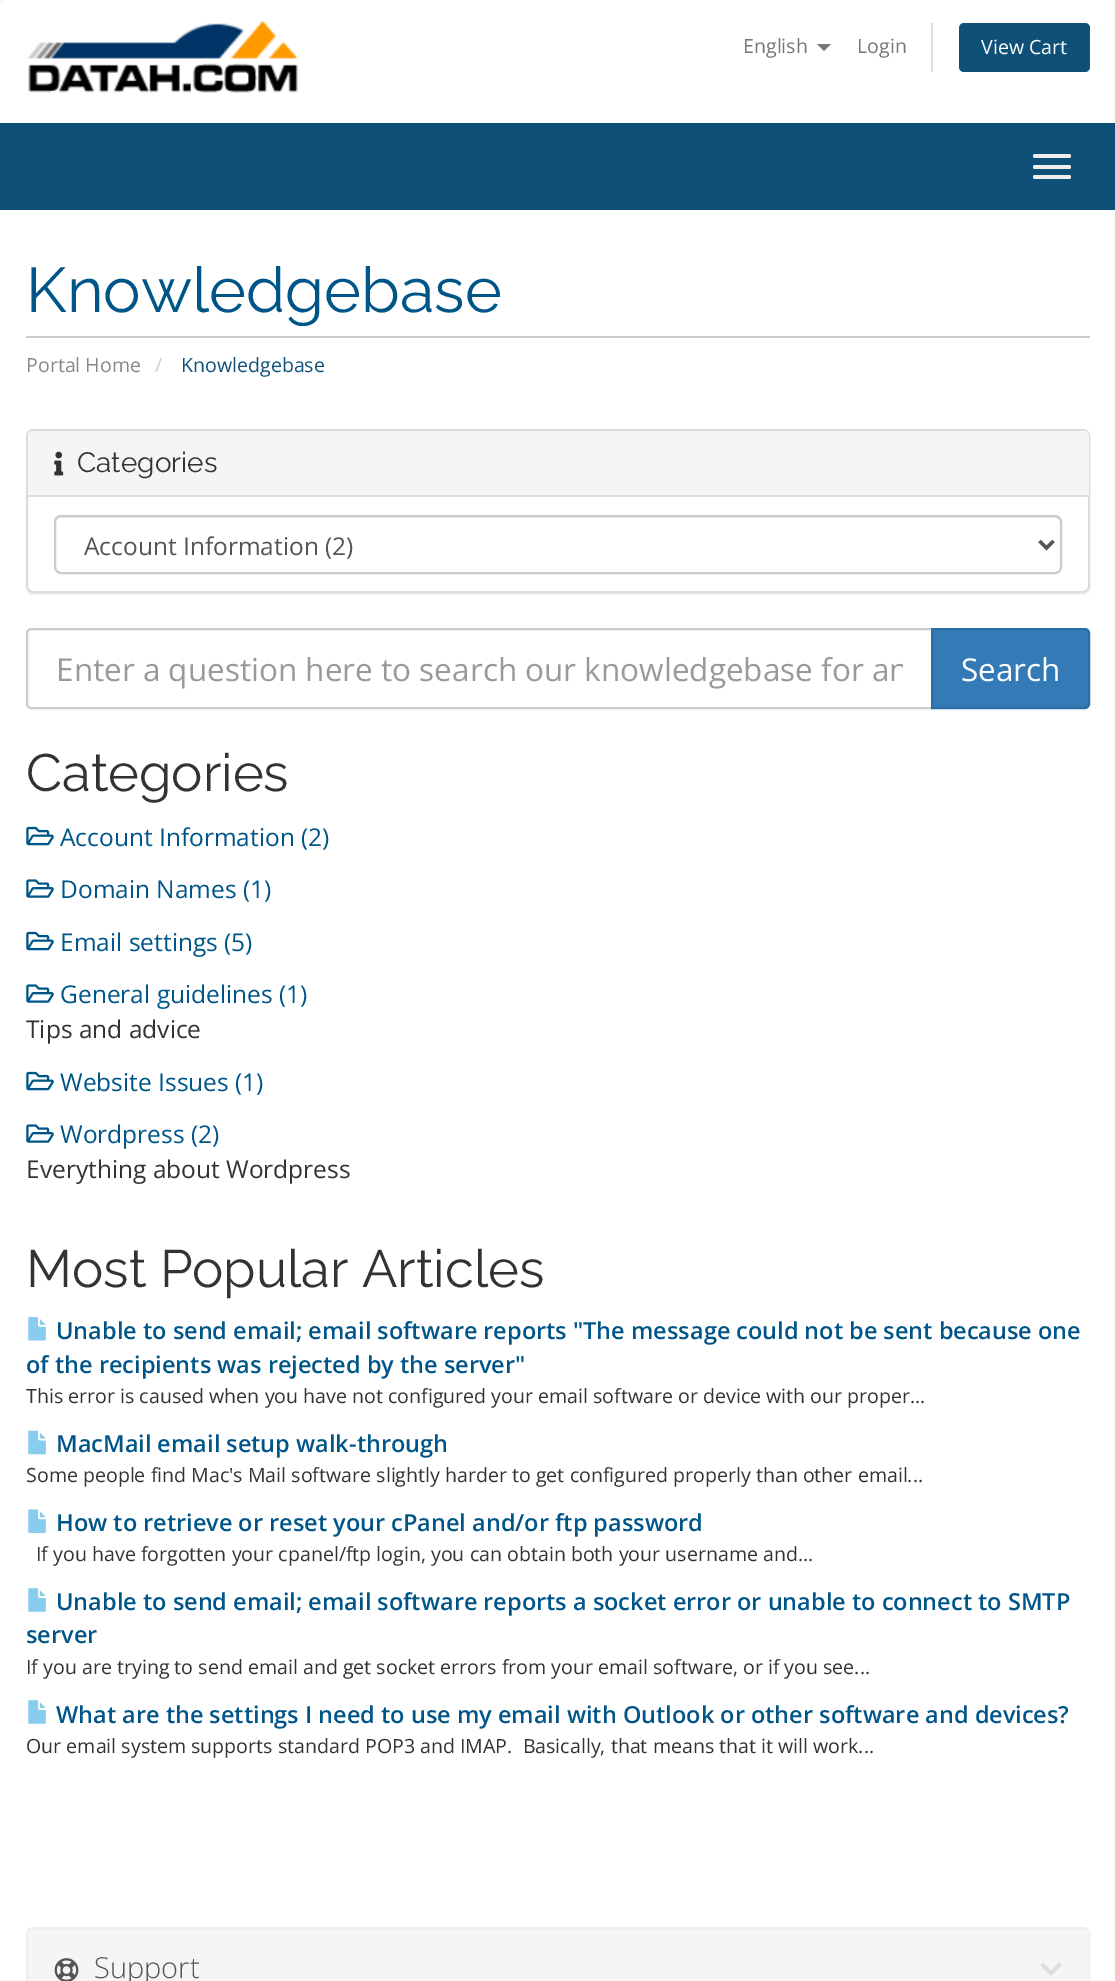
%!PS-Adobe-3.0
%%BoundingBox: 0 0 1115 1981
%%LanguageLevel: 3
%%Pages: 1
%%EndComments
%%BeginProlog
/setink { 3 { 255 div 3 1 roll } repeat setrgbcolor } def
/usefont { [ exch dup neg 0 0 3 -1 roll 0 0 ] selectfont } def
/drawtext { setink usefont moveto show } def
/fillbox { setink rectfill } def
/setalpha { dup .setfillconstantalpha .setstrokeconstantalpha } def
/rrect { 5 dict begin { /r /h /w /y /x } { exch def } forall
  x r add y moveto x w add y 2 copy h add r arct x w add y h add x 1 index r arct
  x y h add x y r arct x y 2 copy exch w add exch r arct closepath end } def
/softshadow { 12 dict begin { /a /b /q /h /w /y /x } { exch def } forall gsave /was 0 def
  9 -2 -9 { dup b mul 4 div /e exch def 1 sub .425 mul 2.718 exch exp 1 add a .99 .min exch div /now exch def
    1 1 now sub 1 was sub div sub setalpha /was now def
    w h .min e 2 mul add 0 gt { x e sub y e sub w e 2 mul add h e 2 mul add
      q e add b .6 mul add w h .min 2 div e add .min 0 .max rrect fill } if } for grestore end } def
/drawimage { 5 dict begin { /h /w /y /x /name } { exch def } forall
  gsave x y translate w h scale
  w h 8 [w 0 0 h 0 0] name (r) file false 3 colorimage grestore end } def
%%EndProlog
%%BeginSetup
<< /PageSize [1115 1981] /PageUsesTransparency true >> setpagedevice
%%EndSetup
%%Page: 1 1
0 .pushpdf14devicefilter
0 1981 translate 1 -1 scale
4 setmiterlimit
0 0 1115 1981 248 248 248 fillbox
255 255 255 setink
9 0 moveto 1108 0 lineto 1113 0 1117 4 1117 9 curveto 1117 123 lineto 0 123 lineto 0 9 lineto 0 4 4 0 9 0 curveto closepath fill
(assets/img1.rgb) 27 20 272 73 drawimage
(English) 743 53 /OpenSans-Regular 19.6 119 119 119 drawtext
817 44 moveto 831 44 lineto 824 51 lineto closepath fill
(Login) 857 53 /OpenSans-Regular 19.6 119 119 119 drawtext
931 23 2 49 221 221 221 fillbox
14 80 119 setink
959 23 131 49 5 rrect fill
(View Cart) 981 54 /OpenSans-Regular 19.6 255 255 255 drawtext
0 123 1115 87 14 80 119 fillbox
238 238 238 setink
1033 154 38 4 2 rrect fill
1033 165 38 4 2 rrect fill
1033 175 38 4 2 rrect fill
0 210 1115 1771 255 255 255 fillbox
26 336 1064 2 204 204 204 fillbox
(Knowledgebase) 26 312 /Raleway-Regular 63 0 85 136 drawtext
(Portal Home) 26 372 /OpenSans-Regular 19.6 136 136 136 drawtext
(/) 155 372 /OpenSans-Regular 19.6 204 204 204 drawtext
(Knowledgebase) 181 372 /OpenSans-Regular 19.6 14 80 119 drawtext
0 0 0 setink
26 431 1064 164 7 1 0.05 softshadow
255 255 255 setink
27 430 1062 162 6 rrect gsave fill grestore
221 221 221 setink
2 setlinewidth
stroke
245 245 245 setink
33 431 moveto 1084 431 lineto 1087 431 1089 433 1089 436 curveto 1089 497 lineto 28 497 lineto 28 436 lineto 28 433 30 431 33 431 curveto closepath fill
28 495 1061 2 221 221 221 fillbox
(assets/img2.rgb) 54 451 10 25 drawimage
(Categories) 77 472 /Raleway-Regular 28 51 51 51 drawtext
236 236 236 setink
61 518 moveto 1055 518 lineto 1058 518 1060 520 1060 523 curveto 1060 570 lineto 1061 569 1061 568 1061 567 curveto 1061 521 lineto 1061 518 1059 516 1056 516 curveto 61 516 lineto 58 516 56 518 56 521 curveto 56 523 lineto 56 520 58 518 61 518 curveto closepath fill
204 204 204 setink
55 516 1006 57 6 rrect stroke
85 85 85 setink
3.5 setlinewidth
1039.5 541 moveto 1046.5 548 lineto 1053.5 541 lineto stroke
(Account Information \(2\)) 84 555 /OpenSans-Regular 24.5 85 85 85 drawtext
204 204 204 setink
2 setlinewidth
31 629 moveto 932 629 lineto 932 708 lineto 31 708 lineto 29 708 27 706 27 704 curveto 27 633 lineto 27 631 29 629 31 629 curveto closepath stroke
gsave
56 648 847 42 rectclip
(Enter a question here to search our knowledgebase for an) 56 681 /OpenSans-Regular 31.5 153 153 153 drawtext
grestore
51 122 183 setink
932 629 moveto 1085 629 lineto 1087 629 1089 631 1089 633 curveto 1089 704 lineto 1089 706 1087 708 1085 708 curveto 932 708 lineto closepath gsave fill grestore
46 109 164 setink
stroke
(Search) 961 681 /OpenSans-Regular 31.5 255 255 255 drawtext
(Categories) 26 791 /Raleway-Regular 52.5 51 51 51 drawtext
(assets/img3.rgb) 26 826 28 20 drawimage
(Account Information \(2\)) 60 846 /OpenSans-Regular 24.5 0 85 136 drawtext
(assets/img4.rgb) 26 879 28 19 drawimage
(Domain Names \(1\)) 60 898 /OpenSans-Regular 24.5 0 85 136 drawtext
(assets/img3.rgb) 26 931 28 20 drawimage
(Email settings \(5\)) 60 951 /OpenSans-Regular 24.5 0 85 136 drawtext
(assets/img4.rgb) 26 984 28 19 drawimage
(General guidelines \(1\)) 60 1003 /OpenSans-Regular 24.5 0 85 136 drawtext
(Tips and advice) 26 1038 /OpenSans-Regular 24.5 51 51 51 drawtext
(assets/img3.rgb) 26 1071 28 20 drawimage
(Website Issues \(1\)) 60 1091 /OpenSans-Regular 24.5 0 85 136 drawtext
(assets/img4.rgb) 26 1124 28 19 drawimage
(Wordpress \(2\)) 60 1143 /OpenSans-Regular 24.5 0 85 136 drawtext
(Everything about Wordpress) 26 1178 /OpenSans-Regular 24.5 51 51 51 drawtext
(Most Popular Articles) 26 1287 /Raleway-Regular 52.5 51 51 51 drawtext
(assets/img5.rgb) 28 1317 18 24 drawimage
(Unable to send email; email software reports "The message could not be sent because one) 56 1339 /OpenSans-SemiBold 23.5 0 85 136 drawtext
(of the recipients was rejected by the server") 26 1373 /OpenSans-SemiBold 23.5 0 85 136 drawtext
(This error is caused when you have not configured your email software or device with our proper...) 26 1403 /OpenSans-Regular 19.6 51 51 51 drawtext
(assets/img6.rgb) 28 1430 18 25 drawimage
(MacMail email setup walk-through) 56 1452 /OpenSans-SemiBold 23.5 0 85 136 drawtext
(Some people find Mac's Mail software slightly harder to get configured properly than other email...) 26 1482 /OpenSans-Regular 19.6 51 51 51 drawtext
(assets/img7.rgb) 28 1509 18 24 drawimage
(How to retrieve or reset your cPanel and/or ftp password) 56 1531 /OpenSans-SemiBold 23.5 0 85 136 drawtext
(If you have forgotten your cpanel/ftp login, you can obtain both your username and...) 36 1561 /OpenSans-Regular 19.6 51 51 51 drawtext
(assets/img8.rgb) 28 1588 18 24 drawimage
(Unable to send email; email software reports a socket error or unable to connect to SMTP) 56 1610 /OpenSans-SemiBold 23.5 0 85 136 drawtext
(server) 26 1643 /OpenSans-SemiBold 23.5 0 85 136 drawtext
(If you are trying to send email and get socket errors from your email software, or if you see...) 26 1674 /OpenSans-Regular 19.6 51 51 51 drawtext
(assets/img8.rgb) 28 1700 18 24 drawimage
(What are the settings I need to use my email with Outlook or other software and devices?) 56 1723 /OpenSans-SemiBold 23.5 0 85 136 drawtext
(Our email system supports standard POP3 and IMAP.  Basically, that means that it will work...) 26 1753 /OpenSans-Regular 19.6 51 51 51 drawtext
238 238 238 setink
27 1928 1062 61 6 rrect stroke
245 245 245 setink
33 1929 moveto 1084 1929 lineto 1087 1929 1089 1931 1089 1934 curveto 1089 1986 lineto 28 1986 lineto 28 1934 lineto 28 1931 30 1929 33 1929 curveto closepath fill
(assets/img9.rgb) 54 1958 25 23 drawimage
(Support) 94 1978 /OpenSans-Light 29 85 85 85 drawtext
(assets/img10.rgb) 1040 1963 22 13 drawimage
.poppdf14devicefilter showpage
%%EOF
